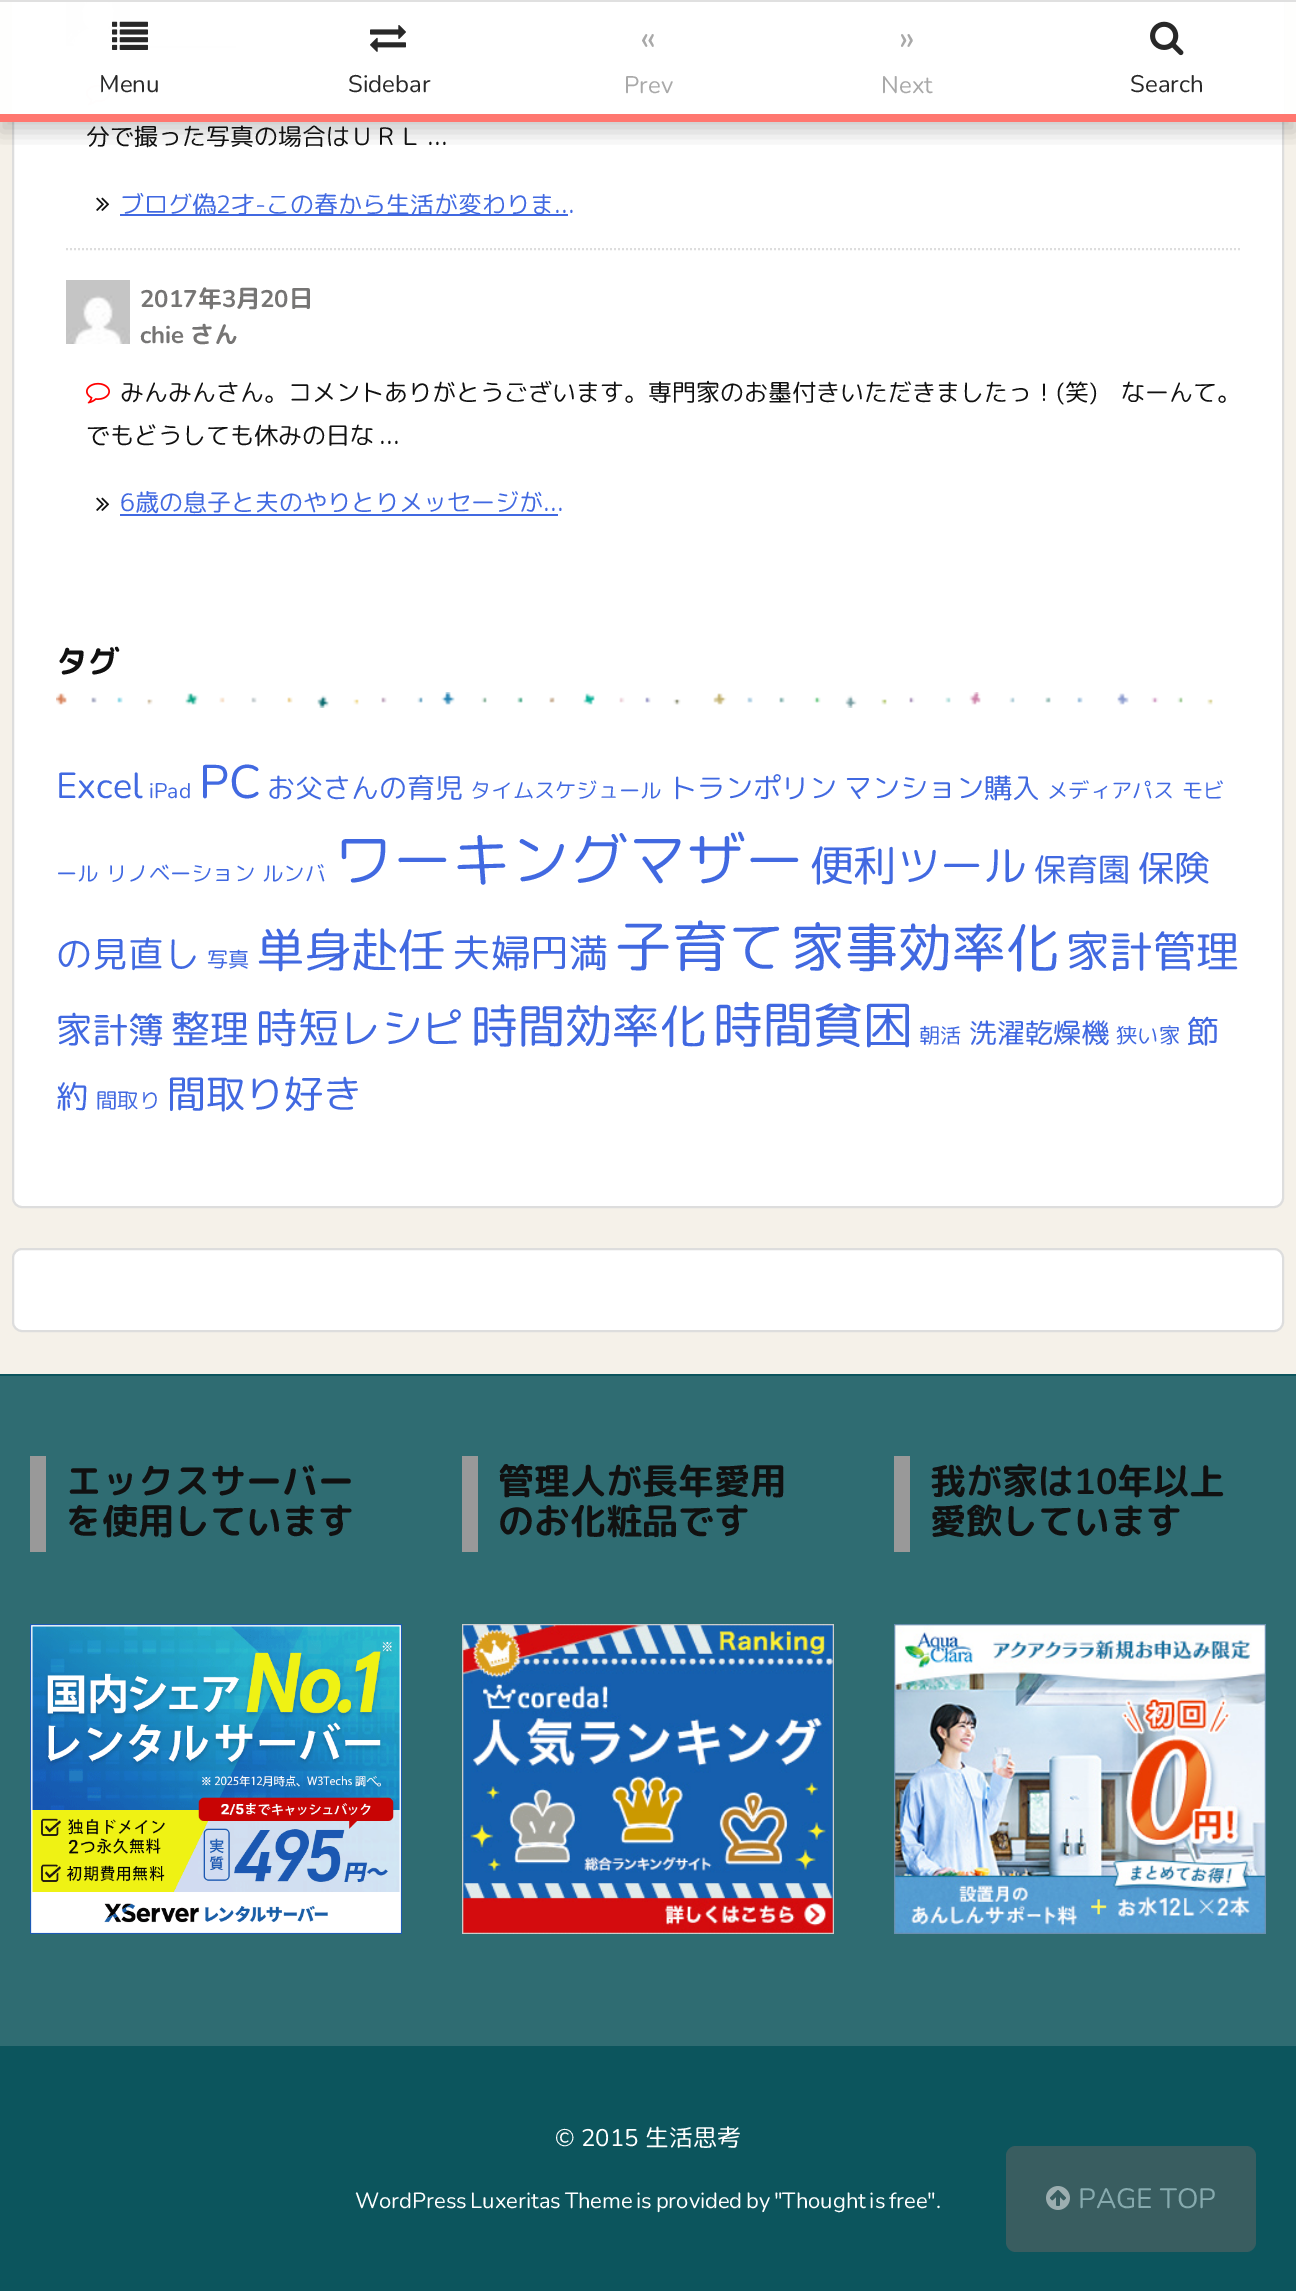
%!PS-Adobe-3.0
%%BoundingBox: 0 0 1296 2291
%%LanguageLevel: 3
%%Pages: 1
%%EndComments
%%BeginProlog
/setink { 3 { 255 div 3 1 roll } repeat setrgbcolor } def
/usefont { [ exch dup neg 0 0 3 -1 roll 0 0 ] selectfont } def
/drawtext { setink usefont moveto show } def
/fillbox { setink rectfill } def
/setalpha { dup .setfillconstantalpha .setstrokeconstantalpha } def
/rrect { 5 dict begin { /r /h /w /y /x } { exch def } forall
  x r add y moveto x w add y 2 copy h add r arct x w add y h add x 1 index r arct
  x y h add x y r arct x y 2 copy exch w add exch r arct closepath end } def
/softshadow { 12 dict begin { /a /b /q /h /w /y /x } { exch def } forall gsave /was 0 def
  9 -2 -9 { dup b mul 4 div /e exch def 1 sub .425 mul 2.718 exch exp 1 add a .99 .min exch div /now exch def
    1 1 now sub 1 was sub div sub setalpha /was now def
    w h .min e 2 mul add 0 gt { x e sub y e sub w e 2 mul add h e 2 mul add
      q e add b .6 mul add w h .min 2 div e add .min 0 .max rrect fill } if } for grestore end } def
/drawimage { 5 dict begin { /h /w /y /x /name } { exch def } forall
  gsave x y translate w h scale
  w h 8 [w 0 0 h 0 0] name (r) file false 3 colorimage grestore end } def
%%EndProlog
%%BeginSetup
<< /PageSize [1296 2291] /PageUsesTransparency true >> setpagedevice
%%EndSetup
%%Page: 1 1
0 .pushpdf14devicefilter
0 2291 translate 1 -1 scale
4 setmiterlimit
0 0 1296 2291 245 241 233 fillbox
255 255 255 setink
13 -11 1270 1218 9 rrect gsave fill grestore
221 221 221 setink
2 setlinewidth
stroke
(assets/img4.rgb) 66 0 64 46 drawimage
140 46 96 2 118 117 116 fillbox
(assets/img5.rgb) 86 84 24 22 drawimage
gsave
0 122 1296 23 rectclip
0 0 0 setink
0 10 1296 122 0 10 0.2 softshadow
grestore
0.9 setalpha
0 0 1296 122 255 255 255 fillbox
0 0 1296 2 221 221 221 fillbox
0 114 1296 8 255 104 96 fillbox
12 2 1272 112 255 255 255 fillbox
1 setalpha
(assets/img1.rgb) 112 21 36 29 drawimage
(Menu) 99 92 /Nunito-Regular 24 41 41 41 drawtext
(assets/img2.rgb) 370 25 36 27 drawimage
(Sidebar) 348 92 /Nunito-Regular 24 41 41 41 drawtext
(«) 640 50 /Nunito-Regular 36 169 169 169 drawtext
(Prev) 624 93 /Nunito-Regular 24 169 169 169 drawtext
(») 899 50 /Nunito-Regular 36 169 169 169 drawtext
(Next) 881 93 /Nunito-Regular 24 169 169 169 drawtext
(assets/img3.rgb) 1150 21 34 35 drawimage
(Search) 1130 92 /Nunito-Regular 24 41 41 41 drawtext
221 221 221 setink
[2 2] 0 setdash
66 249 moveto 1240 249 lineto stroke
/RoundedMplus1c-Regular 24 usefont
17 17 17 setink
86 145 moveto -1 0 32 (分で撮った写真の場合はＵＲＬ ...) widthshow
(assets/img6.rgb) 96 197 14 14 drawimage
120 214 448 2 65 105 225 fillbox
(ブログ偽2才-この春から生活が変わりま...) 120 213 /RoundedMplus1c-Regular 24 65 105 225 drawtext
(assets/img7.rgb) 66 280 64 64 drawimage
(2017) 140 307 /Nunito-Bold 24 118 117 116 drawtext
(年) 198 307 /RoundedMplus1c-Bold 24 118 117 116 drawtext
(3) 222 307 /Nunito-Bold 24 118 117 116 drawtext
(月) 236 307 /RoundedMplus1c-Bold 24 118 117 116 drawtext
(20) 260 307 /Nunito-Bold 24 118 117 116 drawtext
(日) 289 307 /RoundedMplus1c-Bold 24 118 117 116 drawtext
(chie) 140 343 /Nunito-Bold 24 118 117 116 drawtext
(さん) 190 343 /RoundedMplus1c-Bold 24 118 117 116 drawtext
(assets/img5.rgb) 86 382 24 22 drawimage
(みんみんさん。コメントありがとうございます。専門家のお墨付きいただきましたっ！\(笑\)　なーんて。) 120 401 /RoundedMplus1c-Regular 24 17 17 17 drawtext
86 444 moveto -1 0 32 (でもどうしても休みの日な ...) widthshow
(assets/img6.rgb) 96 497 14 14 drawimage
(6歳の息子と夫のやりとりメッセージが...) 120 511 /RoundedMplus1c-Regular 24 65 105 225 drawtext
120 514 438 2 65 105 225 fillbox
(assets/img8.rgb) 56 692 1157 16 drawimage
(タグ) 56 673 /RoundedMplus1c-Bold 32 17 17 17 drawtext
(Excel) 56 798 /Nunito-Regular 36 65 105 225 drawtext
(iPad) 149 798 /Nunito-Regular 21.25 65 105 225 drawtext
(PC) 199 798 /Nunito-Regular 47 65 105 225 drawtext
(お父さんの育児) 267 798 /RoundedMplus1c-Regular 28 65 105 225 drawtext
(タイムスケジュール) 470 798 /RoundedMplus1c-Regular 21.25 65 105 225 drawtext
(トランポリン) 669 798 /RoundedMplus1c-Regular 28 65 105 225 drawtext
(マンション購入) 844 798 /RoundedMplus1c-Regular 28 65 105 225 drawtext
(メディアパス) 1047 798 /RoundedMplus1c-Regular 21.25 65 105 225 drawtext
(モビ) 1182 798 /RoundedMplus1c-Regular 21.25 65 105 225 drawtext
(ール) 56 881 /RoundedMplus1c-Regular 21.25 65 105 225 drawtext
(リノベーション) 106 881 /RoundedMplus1c-Regular 21.25 65 105 225 drawtext
(ルンバ) 262 881 /RoundedMplus1c-Regular 21.25 65 105 225 drawtext
(ワーキングマザー) 334 881 /RoundedMplus1c-Regular 58.75 65 105 225 drawtext
(便利ツール) 810 881 /RoundedMplus1c-Regular 43.25 65 105 225 drawtext
(保育園) 1034 881 /RoundedMplus1c-Regular 32 65 105 225 drawtext
(保険) 1138 881 /RoundedMplus1c-Regular 36 65 105 225 drawtext
(の見直し) 56 967 /RoundedMplus1c-Regular 36 65 105 225 drawtext
(写真) 207 967 /RoundedMplus1c-Regular 21.25 65 105 225 drawtext
(単身赴任) 257 967 /RoundedMplus1c-Regular 47 65 105 225 drawtext
(夫婦円満) 452 967 /RoundedMplus1c-Regular 39 65 105 225 drawtext
(子育て) 615 967 /RoundedMplus1c-Regular 56.5 65 105 225 drawtext
(家事効率化) 791 967 /RoundedMplus1c-Regular 53.5 65 105 225 drawtext
(家計管理) 1066 967 /RoundedMplus1c-Regular 43.25 65 105 225 drawtext
(家計簿) 56 1043 /RoundedMplus1c-Regular 36 65 105 225 drawtext
(整理) 171 1043 /RoundedMplus1c-Regular 39 65 105 225 drawtext
(時短レシピ) 256 1043 /RoundedMplus1c-Regular 41.5 65 105 225 drawtext
(時間効率化) 471 1043 /RoundedMplus1c-Regular 47 65 105 225 drawtext
(時間貧困) 713 1043 /RoundedMplus1c-Regular 50 65 105 225 drawtext
(朝活) 919 1043 /RoundedMplus1c-Regular 21.25 65 105 225 drawtext
(洗濯乾燥機) 969 1043 /RoundedMplus1c-Regular 28 65 105 225 drawtext
(狭い家) 1116 1043 /RoundedMplus1c-Regular 21.25 65 105 225 drawtext
(節) 1187 1043 /RoundedMplus1c-Regular 32 65 105 225 drawtext
(約) 56 1108 /RoundedMplus1c-Regular 32 65 105 225 drawtext
(間取り) 96 1108 /RoundedMplus1c-Regular 21.25 65 105 225 drawtext
(間取り好き) 167 1108 /RoundedMplus1c-Regular 39 65 105 225 drawtext
255 255 255 setink
13 1249 1270 82 9 rrect gsave fill grestore
221 221 221 setink
[] 0 setdash
stroke
0 1376 1296 670 47 108 114 fillbox
0 1374 1296 2 12 85 93 fillbox
30 1456 16 96 153 153 153 fillbox
(エックスサーバー) 66 1494 /RoundedMplus1c-Bold 36 17 17 17 drawtext
(を使用しています) 66 1534 /RoundedMplus1c-Bold 36 17 17 17 drawtext
(assets/img9.rgb) 30 1624 372 310 drawimage
462 1456 16 96 153 153 153 fillbox
(管理人が長年愛用) 498 1494 /RoundedMplus1c-Bold 36 17 17 17 drawtext
(のお化粧品です) 498 1534 /RoundedMplus1c-Bold 36 17 17 17 drawtext
(assets/img10.rgb) 462 1624 372 310 drawimage
894 1456 16 96 153 153 153 fillbox
(我が家は) 930 1494 /RoundedMplus1c-Bold 36 17 17 17 drawtext
(10) 1074 1494 /Nunito-Bold 36 17 17 17 drawtext
(年以上) 1117 1494 /RoundedMplus1c-Bold 36 17 17 17 drawtext
(愛飲しています) 930 1534 /RoundedMplus1c-Bold 36 17 17 17 drawtext
(assets/img11.rgb) 894 1624 372 310 drawimage
0 2046 1296 245 12 85 93 fillbox
(© 2015) 555 2146 /Nunito-Regular 24 255 255 255 drawtext
(生活思考) 645 2146 /RoundedMplus1c-Regular 24 255 255 255 drawtext
/Nunito-Regular 22 usefont
355 2208 moveto -2 0 32 (WordPress Luxeritas Theme is provided by "Thought is free) widthshow
(".) 927 2208 /Nunito-Regular 22 255 255 255 drawtext
57 93 96 setink
1006 2146 250 106 10 rrect fill
(assets/img12.rgb) 1046 2186 24 24 drawimage
(PAGE TOP) 1078 2208 /Nunito-Regular 28 134 170 174 drawtext
.poppdf14devicefilter showpage
%%EOF
